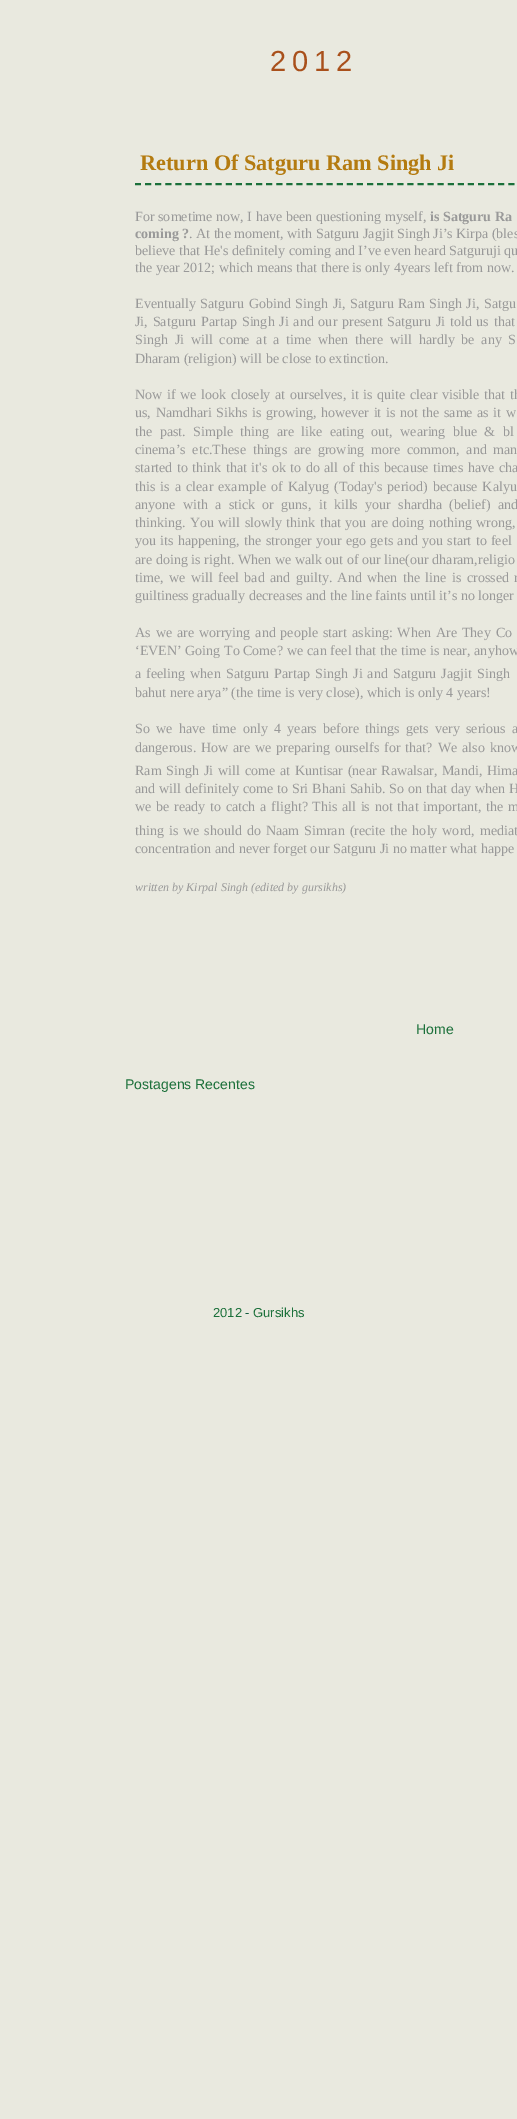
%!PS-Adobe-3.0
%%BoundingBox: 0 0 517 2119
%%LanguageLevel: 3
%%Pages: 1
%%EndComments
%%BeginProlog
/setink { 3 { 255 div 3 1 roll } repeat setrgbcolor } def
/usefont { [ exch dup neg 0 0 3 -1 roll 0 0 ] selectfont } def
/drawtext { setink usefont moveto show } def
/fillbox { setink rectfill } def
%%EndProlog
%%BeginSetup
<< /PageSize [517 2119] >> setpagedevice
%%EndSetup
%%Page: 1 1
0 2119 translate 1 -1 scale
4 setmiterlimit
0 0 517 2119 233 233 223 fillbox
/LiberationSans-Regular 29 usefont
169 80 27 setink
270 71 moveto 6 0 (2012) ashow
27 112 58 setink
2 setlinewidth
[6 4.09] 0 setdash
135 184 moveto 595 184 lineto stroke
(Return Of Satguru Ram Singh Ji) 140 170 /LiberationSerif-Bold 22.25 180 123 16 drawtext
(For sometime now, I have been questioning myself,) 135 221 /LiberationSerif-Regular 14.05 153 153 153 drawtext
(is Satguru Ra) 430 221 /LiberationSerif-Bold 14.05 153 153 153 drawtext
(coming ?) 135 238 /LiberationSerif-Bold 14.05 153 153 153 drawtext
(. At the moment, with Satguru Jagjit Singh Ji’s Kirpa \(bles) 189 238 /LiberationSerif-Regular 14.05 153 153 153 drawtext
(believe that He's definitely coming and I’ve even heard Satguruji qu) 135 255 /LiberationSerif-Regular 14.05 153 153 153 drawtext
(the year 2012; which means that there is only 4years left from now.) 135 272 /LiberationSerif-Regular 14.05 153 153 153 drawtext
135 308 moveto 1 0 32 (Eventually Satguru Gobind Singh Ji, Satguru Ram Singh Ji, Satgu) widthshow
135 326 moveto 1.25 0 32 (Ji, Satguru Partap Singh Ji and our present Satguru Ji told us that) widthshow
135 344 moveto 3.25 0 32 (Singh Ji will come at a time when there will hardly be any S) widthshow
(Dharam \(religion\) will be close to extinction.) 135 363 /LiberationSerif-Regular 14.05 153 153 153 drawtext
135 399 moveto 1.1 0 32 (Now if we look closely at ourselves, it is quite clear visible that th) widthshow
135 417 moveto 1 0 32 (us, Namdhari Sikhs is growing, however it is not the same as it w) widthshow
135 436 moveto 3.9 0 32 (the past. Simple thing are like eating out, wearing blue & bl) widthshow
135 454 moveto 3.25 0 32 (cinema’s etc.These things are growing more common, and man) widthshow
135 472 moveto 1 0 32 (started to think that it's ok to do all of this because times have cha) widthshow
135 491 moveto 1.5 0 32 (this is a clear example of Kalyug \(Today's period\) because Kalyu) widthshow
135 509 moveto 3.75 0 32 (anyone with a stick or guns, it kills your shardha \(belief\) and) widthshow
135 527 moveto 0.9 0 32 (thinking. You will slowly think that you are doing nothing wrong,) widthshow
135 545 moveto 0.75 0 32 (you its happening, the stronger your ego gets and you start to feel) widthshow
(are doing is right. When we walk out of our line\(our dharam,religio) 135 564 /LiberationSerif-Regular 14.05 153 153 153 drawtext
135 582 moveto 1.9 0 32 (time, we will feel bad and guilty. And when the line is crossed r) widthshow
(guiltiness gradually decreases and the line faints until it’s no longer) 135 600 /LiberationSerif-Regular 14.05 153 153 153 drawtext
135 637 moveto 1.4 0 32 (As we are worrying and people start asking: When Are They Co) widthshow
(‘EVEN’ Going To Come?) 135 655 /LiberationSerif-Regular 14.05 153 153 153 drawtext
287 655 moveto 0.25 0 32 (we can feel that the time is near, anyhow) widthshow
135 678 moveto 1.5 0 32 (a feeling when Satguru Partap Singh Ji and Satguru Jagjit Singh) widthshow
(bahut nere arya” \(the time is very close\), which is only 4 years!) 135 697 /LiberationSerif-Regular 14.05 153 153 153 drawtext
135 733 moveto 2.75 0 32 (So we have time only 4 years before things gets very serious a) widthshow
135 752 moveto 1.25 0 32 (dangerous. How are we preparing ourselfs for that?) widthshow
438 752 moveto 1.25 0 32 (We also know) widthshow
135 775 moveto 1.25 0 32 (Ram Singh Ji will come at Kuntisar \(near Rawalsar, Mandi, Hima) widthshow
135 793 moveto 0.4 0 32 (and will definitely come to Sri Bhani Sahib. So on that day when H) widthshow
135 811 moveto 1.25 0 32 (we be ready to catch a flight?) widthshow
312 811 moveto 1.25 0 32 (This all is not that important, the m) widthshow
135 835 moveto 1.4 0 32 (thing is we should do Naam Simran \(recite the holy word, mediat) widthshow
(concentration and never forget our Satguru Ji no matter what happe) 135 853 /LiberationSerif-Regular 14.05 153 153 153 drawtext
(written by Kirpal Singh \(edited by gursikhs\)) 135 891 /LiberationSerif-Italic 12 153 153 153 drawtext
(Home) 416 1034 /LiberationSans-Regular 14.05 27 112 58 drawtext
(Postagens Recentes) 125 1089 /LiberationSans-Regular 14.05 27 112 58 drawtext
(2012) 213 1317 /LiberationSans-Regular 13 27 112 58 drawtext
(-) 245 1317 /LiberationSans-Regular 13 17 89 60 drawtext
(Gursikhs) 253 1317 /LiberationSans-Regular 13 27 112 58 drawtext
showpage
%%EOF
